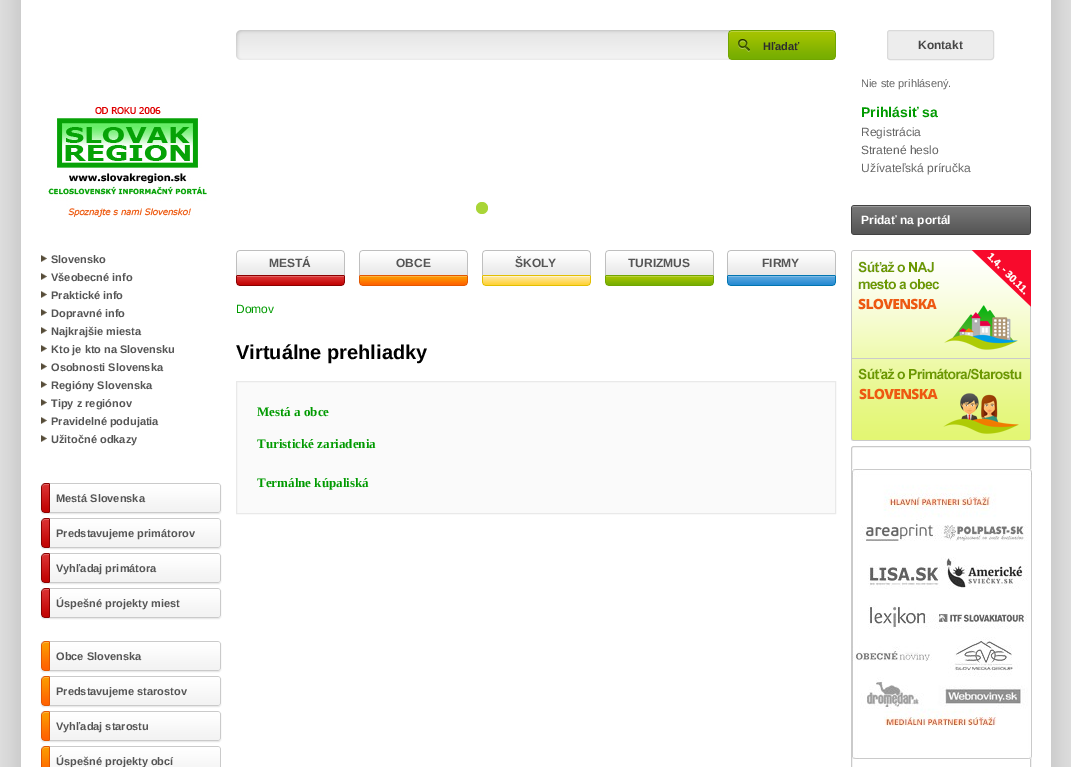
%!PS-Adobe-3.0
%%BoundingBox: 0 0 1071 767
%%LanguageLevel: 3
%%Pages: 1
%%EndComments
%%BeginProlog
/setink { 3 { 255 div 3 1 roll } repeat setrgbcolor } def
/usefont { [ exch dup neg 0 0 3 -1 roll 0 0 ] selectfont } def
/drawtext { setink usefont moveto show } def
/fillbox { setink rectfill } def
/setalpha { dup .setfillconstantalpha .setstrokeconstantalpha } def
/disc { newpath 0 360 arc closepath } def
/rrect { 5 dict begin { /r /h /w /y /x } { exch def } forall
  x r add y moveto x w add y 2 copy h add r arct x w add y h add x 1 index r arct
  x y h add x y r arct x y 2 copy exch w add exch r arct closepath end } def
/softshadow { 12 dict begin { /a /b /q /h /w /y /x } { exch def } forall gsave /was 0 def
  9 -2 -9 { dup b mul 4 div /e exch def 1 sub .425 mul 2.718 exch exp 1 add a .99 .min exch div /now exch def
    1 1 now sub 1 was sub div sub setalpha /was now def
    w h .min e 2 mul add 0 gt { x e sub y e sub w e 2 mul add h e 2 mul add
      q e add b .6 mul add w h .min 2 div e add .min 0 .max rrect fill } if } for grestore end } def
/drawimage { 5 dict begin { /h /w /y /x /name } { exch def } forall
  gsave x y translate w h scale
  w h 8 [w 0 0 h 0 0] name (r) file false 3 colorimage grestore end } def
%%EndProlog
%%BeginSetup
<< /PageSize [1071 767] /PageUsesTransparency true >> setpagedevice
%%EndSetup
%%Page: 1 1
0 .pushpdf14devicefilter
0 767 translate 1 -1 scale
4 setmiterlimit
0 0 1071 767 255 255 255 fillbox
(assets/img1.rgb) 0 0 1071 767 drawimage
(assets/img2.rgb) 236 30 492 30 drawimage
(assets/img3.rgb) 728 30 108 30 drawimage
(Hľadať) 763 50 /LiberationSans-Bold 11 45 45 45 drawtext
169 213 55 setink
482 208 6 disc fill
237 237 237 setink
887.5 30.5 106 29 2.5 rrect gsave fill grestore
218 218 218 setink
stroke
(Kontakt) 918 49 /LiberationSans-Bold 12 69 69 69 drawtext
(Nie ste prihlásený.) 861 87 /LiberationSans-Regular 11 100 100 100 drawtext
(Prihlásiť sa) 861 117 /LiberationSans-Bold 14 0 154 0 drawtext
(Registrácia) 861 136 /LiberationSans-Regular 12 100 100 100 drawtext
(Stratené heslo) 861 154 /LiberationSans-Regular 12 100 100 100 drawtext
(Užívateľská príručka) 861 172 /LiberationSans-Regular 12 100 100 100 drawtext
(assets/img4.rgb) 851 205 180 30 drawimage
(Pridať na portál) 861 224 /LiberationSans-Bold 12 255 255 255 drawtext
(assets/img5.rgb) 46 107 161 110 drawimage
(assets/img6.rgb) 236 250 109 36 drawimage
(MESTÁ) 269 267 /LiberationSans-Bold 12 85 85 85 drawtext
(assets/img7.rgb) 359 250 109 36 drawimage
(OBCE) 396 267 /LiberationSans-Bold 12 85 85 85 drawtext
(assets/img8.rgb) 482 250 109 36 drawimage
(ŠKOLY) 515 267 /LiberationSans-Bold 12 85 85 85 drawtext
(assets/img9.rgb) 605 250 109 36 drawimage
(TURIZMUS) 628 267 /LiberationSans-Bold 12 85 85 85 drawtext
(assets/img10.rgb) 727 250 109 36 drawimage
(FIRMY) 762 267 /LiberationSans-Bold 12 85 85 85 drawtext
(assets/img11.rgb) 41 255 6 7 drawimage
(Slovensko) 51 263 /LiberationSans-Bold 11 85 85 85 drawtext
(assets/img11.rgb) 41 273 6 7 drawimage
(Všeobecné info) 51 281 /LiberationSans-Bold 11 85 85 85 drawtext
(assets/img11.rgb) 41 291 6 7 drawimage
(Praktické info) 51 299 /LiberationSans-Bold 11 85 85 85 drawtext
(assets/img11.rgb) 41 309 6 7 drawimage
(Dopravné info) 51 317 /LiberationSans-Bold 11 85 85 85 drawtext
(assets/img11.rgb) 41 327 6 7 drawimage
(Najkrajšie miesta) 51 335 /LiberationSans-Bold 11 85 85 85 drawtext
(assets/img11.rgb) 41 345 6 7 drawimage
(Kto je kto na Slovensku) 51 353 /LiberationSans-Bold 11 85 85 85 drawtext
(assets/img11.rgb) 41 363 6 7 drawimage
(Osobnosti Slovenska) 51 371 /LiberationSans-Bold 11 85 85 85 drawtext
(assets/img11.rgb) 41 381 6 7 drawimage
(Regióny Slovenska) 51 389 /LiberationSans-Bold 11 85 85 85 drawtext
(assets/img11.rgb) 41 399 6 7 drawimage
(Tipy z regiónov) 51 407 /LiberationSans-Bold 11 85 85 85 drawtext
(assets/img11.rgb) 41 417 6 7 drawimage
(Pravidelné podujatia) 51 425 /LiberationSans-Bold 11 85 85 85 drawtext
(assets/img11.rgb) 41 435 6 7 drawimage
(Užitočné odkazy) 51 443 /LiberationSans-Bold 11 85 85 85 drawtext
0 0 0 setink
41 484 180 30 3 0.5 0.1 softshadow
(assets/img12.rgb) 41 483 180 30 drawimage
(Mestá Slovenska) 56 502 /LiberationSans-Bold 11 85 85 85 drawtext
0 0 0 setink
41 519 180 30 3 0.5 0.1 softshadow
(assets/img12.rgb) 41 518 180 30 drawimage
(Predstavujeme primátorov) 56 537 /LiberationSans-Bold 11 85 85 85 drawtext
0 0 0 setink
41 554 180 30 3 0.5 0.1 softshadow
(assets/img12.rgb) 41 553 180 30 drawimage
(Vyhľadaj primátora) 56 572 /LiberationSans-Bold 11 85 85 85 drawtext
0 0 0 setink
41 589 180 30 3 0.5 0.1 softshadow
(assets/img12.rgb) 41 588 180 30 drawimage
(Úspešné projekty miest) 56 607 /LiberationSans-Bold 11 85 85 85 drawtext
0 0 0 setink
41 642 180 30 3 0.5 0.1 softshadow
(assets/img13.rgb) 41 641 180 30 drawimage
(Obce Slovenska) 56 660 /LiberationSans-Bold 11 85 85 85 drawtext
0 0 0 setink
41 677 180 30 3 0.5 0.1 softshadow
(assets/img13.rgb) 41 676 180 30 drawimage
(Predstavujeme starostov) 56 695 /LiberationSans-Bold 11 85 85 85 drawtext
0 0 0 setink
41 712 180 30 3 0.5 0.1 softshadow
(assets/img13.rgb) 41 711 180 30 drawimage
(Vyhľadaj starostu) 56 730 /LiberationSans-Bold 11 85 85 85 drawtext
(assets/img14.rgb) 41 746 180 21 drawimage
(Úspešné projekty obcí) 56 765 /LiberationSans-Bold 11 85 85 85 drawtext
(Domov) 236 313 /LiberationSans-Regular 12 0 154 0 drawtext
(Virtuálne prehliadky) 236 359 /LiberationSans-Bold 20 0 0 0 drawtext
250 250 250 setink
236.5 381.5 moveto 835.5 381.5 lineto 835.5 513.5 lineto 236.5 513.5 lineto closepath gsave fill grestore
233 233 233 setink
stroke
(Mestá a obce) 257 416 /LiberationSerif-Bold 13 0 154 0 drawtext
(Turistické zariadenia) 257 448 /LiberationSerif-Bold 13 0 154 0 drawtext
(Termálne kúpaliská) 257 487 /LiberationSerif-Bold 13 0 154 0 drawtext
(assets/img15.rgb) 851 250 180 191 drawimage
202 202 202 setink
851.5 446.5 179 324 2.5 rrect stroke
(assets/img16.rgb) 852 469 180 290 drawimage
.poppdf14devicefilter showpage
%%EOF
